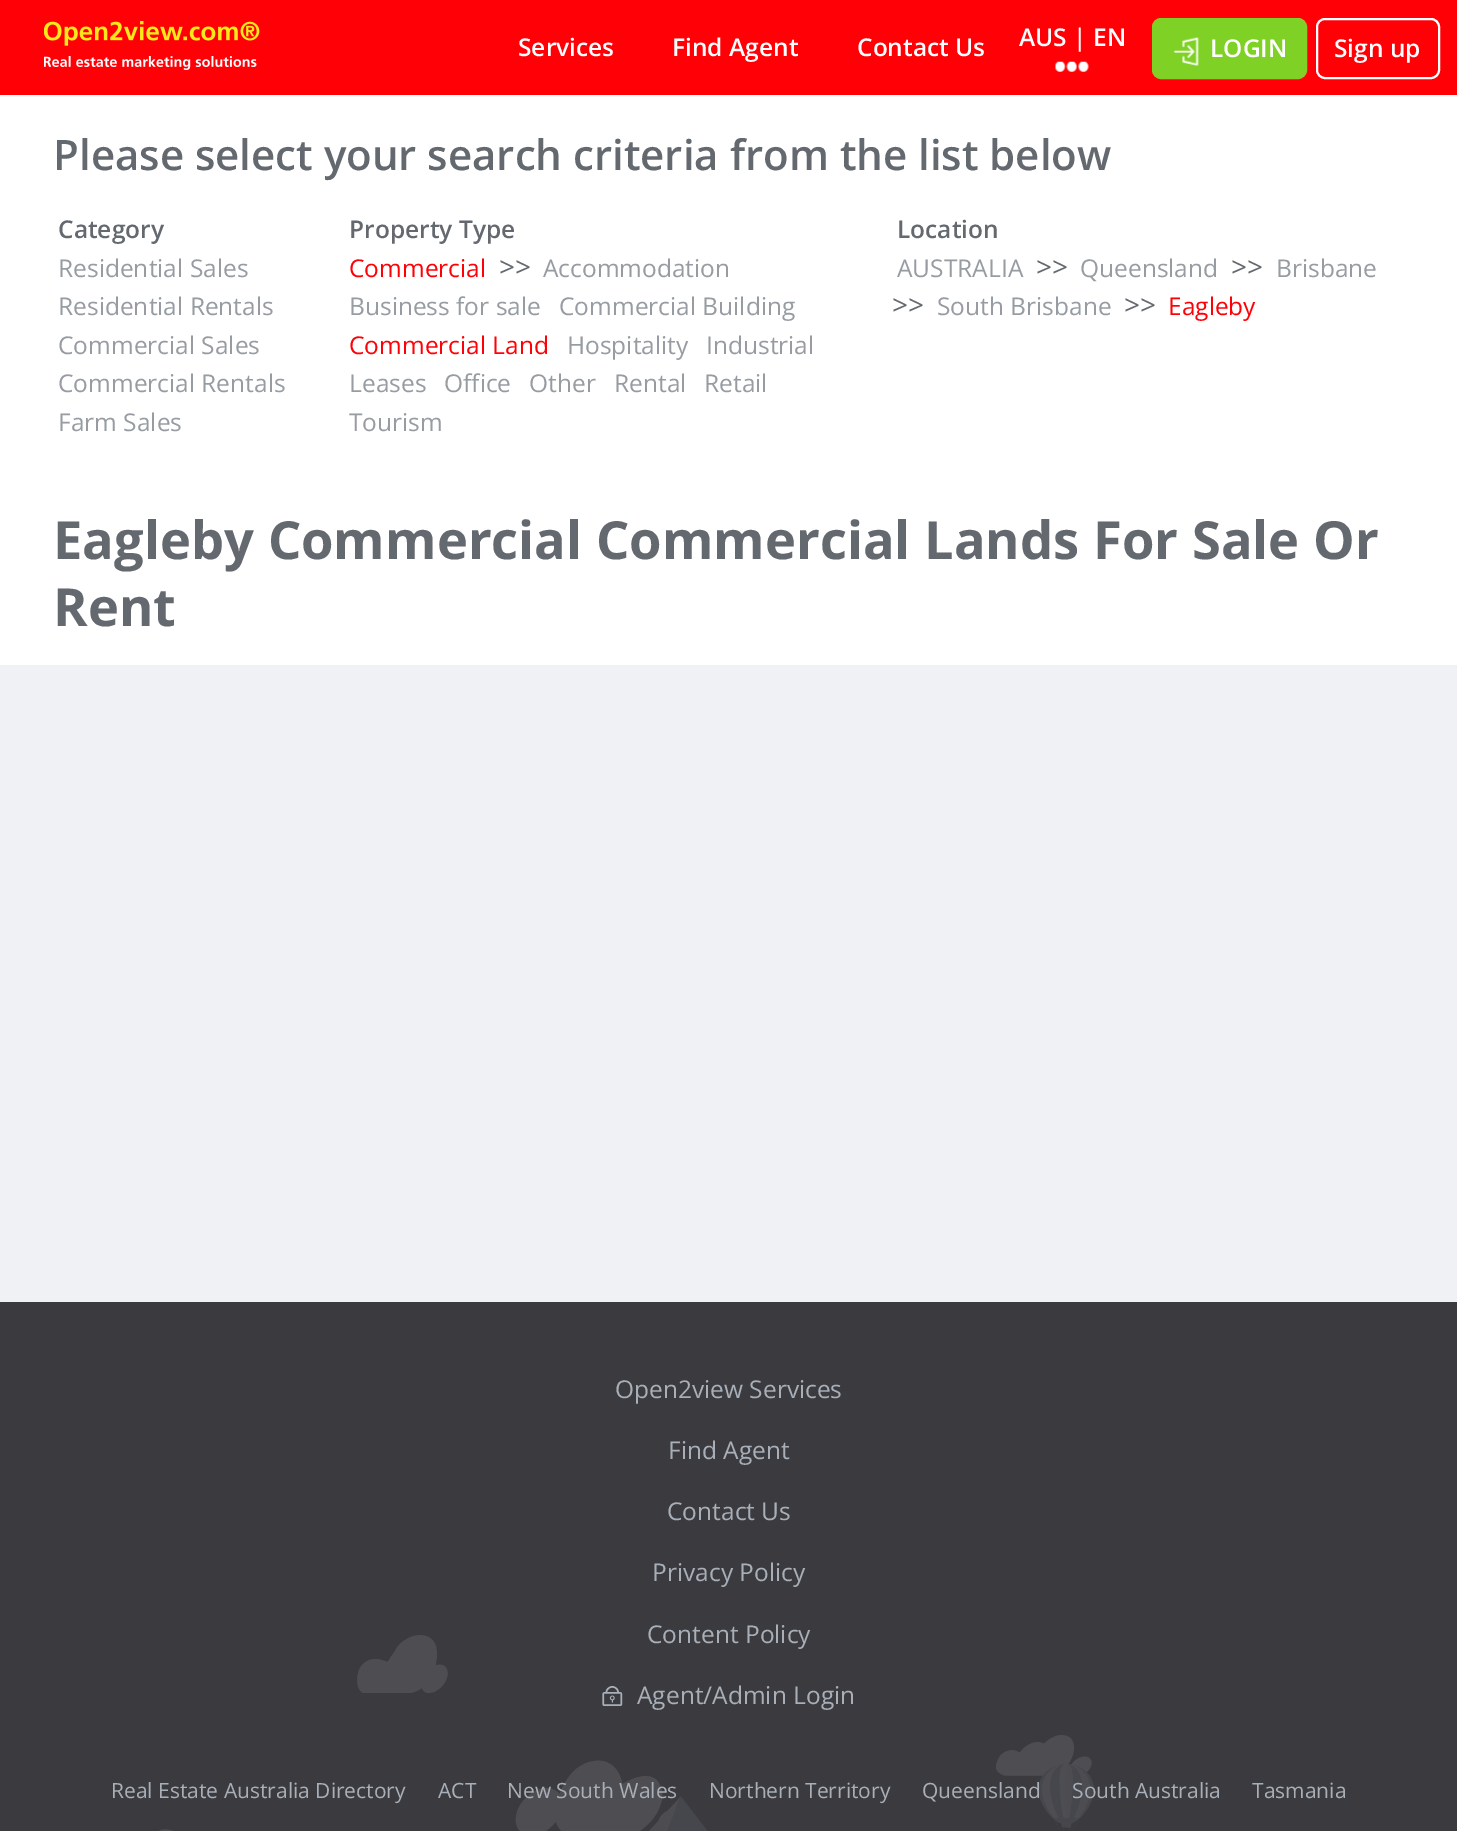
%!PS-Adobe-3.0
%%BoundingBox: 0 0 1457 1831
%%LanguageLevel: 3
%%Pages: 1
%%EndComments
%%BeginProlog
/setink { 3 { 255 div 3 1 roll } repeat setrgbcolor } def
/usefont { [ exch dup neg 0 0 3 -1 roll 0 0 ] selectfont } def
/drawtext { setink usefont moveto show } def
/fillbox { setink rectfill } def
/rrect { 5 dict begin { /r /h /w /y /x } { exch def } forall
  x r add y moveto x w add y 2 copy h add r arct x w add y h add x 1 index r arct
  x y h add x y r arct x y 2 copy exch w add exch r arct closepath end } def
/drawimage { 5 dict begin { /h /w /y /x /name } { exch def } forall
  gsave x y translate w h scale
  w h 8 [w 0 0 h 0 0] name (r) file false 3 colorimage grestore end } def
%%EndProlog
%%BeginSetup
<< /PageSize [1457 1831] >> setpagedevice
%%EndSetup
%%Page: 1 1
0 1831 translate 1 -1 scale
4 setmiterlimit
0 0 1457 1831 239 241 245 fillbox
0 0 1457 95 255 0 6 fillbox
(assets/img1.rgb) 44 21 216 49 drawimage
(Services) 518 56 /OpenSans-SemiBold 24.5 255 255 255 drawtext
(Find Agent) 672 56 /OpenSans-SemiBold 24.5 255 255 255 drawtext
(Contact Us) 857 56 /OpenSans-SemiBold 24.5 255 255 255 drawtext
(AUS | EN) 1019 46 /OpenSans-SemiBold 24.5 255 255 255 drawtext
(assets/img2.rgb) 1055 61 34 11 drawimage
128 209 37 setink
1153 19 153 59 8 rrect gsave fill grestore
2 setlinewidth
stroke
(assets/img3.rgb) 1173 37 26 29 drawimage
(LOGIN) 1210 57 /OpenSans-SemiBold 24.5 255 255 255 drawtext
1317 19 122 59 8 rrect stroke
(Sign up) 1334 57 /OpenSans-SemiBold 24.5 255 255 255 drawtext
0 95 1457 570 255 255 255 fillbox
(Please select your search criteria from the list below) 53 170 /OpenSans-SemiBold 42 100 105 112 drawtext
(Category) 58 238 /OpenSans-SemiBold 24.5 100 105 112 drawtext
(Residential Sales) 58 277 /OpenSans-Regular 24.5 151 156 163 drawtext
(Residential Rentals) 58 315 /OpenSans-Regular 24.5 151 156 163 drawtext
(Commercial Sales) 58 354 /OpenSans-Regular 24.5 151 156 163 drawtext
(Commercial Rentals) 58 392 /OpenSans-Regular 24.5 151 156 163 drawtext
(Farm Sales) 58 431 /OpenSans-Regular 24.5 151 156 163 drawtext
(Property Type) 349 238 /OpenSans-SemiBold 24.5 100 105 112 drawtext
(Commercial) 349 277 /OpenSans-Regular 24.5 255 0 6 drawtext
(>>) 499 277 /OpenSans-Regular 28 100 105 112 drawtext
(Accommodation) 543 277 /OpenSans-Regular 24.5 151 156 163 drawtext
(Business for sale) 349 315 /OpenSans-Regular 24.5 151 156 163 drawtext
(Commercial Building) 559 315 /OpenSans-Regular 24.5 151 156 163 drawtext
(Commercial Land) 349 354 /OpenSans-Regular 24.5 255 0 6 drawtext
(Hospitality) 567 354 /OpenSans-Regular 24.5 151 156 163 drawtext
(Industrial) 706 354 /OpenSans-Regular 24.5 151 156 163 drawtext
(Leases) 349 392 /OpenSans-Regular 24.5 151 156 163 drawtext
(Office) 444 392 /OpenSans-Regular 24.5 151 156 163 drawtext
(Other) 529 392 /OpenSans-Regular 24.5 151 156 163 drawtext
(Rental) 614 392 /OpenSans-Regular 24.5 151 156 163 drawtext
(Retail) 704 392 /OpenSans-Regular 24.5 151 156 163 drawtext
(Tourism) 349 431 /OpenSans-Regular 24.5 151 156 163 drawtext
(Location) 897 238 /OpenSans-SemiBold 24.5 100 105 112 drawtext
(AUSTRALIA) 897 277 /OpenSans-Regular 24.5 151 156 163 drawtext
(>>) 1036 277 /OpenSans-Regular 28 100 105 112 drawtext
(Queensland) 1080 277 /OpenSans-Regular 24.5 151 156 163 drawtext
(>>) 1231 277 /OpenSans-Regular 28 100 105 112 drawtext
(Brisbane) 1276 277 /OpenSans-Regular 24.5 151 156 163 drawtext
(>>) 892 315 /OpenSans-Regular 28 100 105 112 drawtext
(South Brisbane) 937 315 /OpenSans-Regular 24.5 151 156 163 drawtext
(>>) 1124 315 /OpenSans-Regular 28 100 105 112 drawtext
(Eagleby) 1168 315 /OpenSans-Regular 24.5 255 0 6 drawtext
(Eagleby Commercial Commercial Lands For Sale Or) 53 559 /OpenSans-Bold 52.5 100 105 112 drawtext
(Rent) 53 626 /OpenSans-Bold 52.5 100 105 112 drawtext
0 1302 1457 529 59 59 63 fillbox
(assets/img4.rgb) 159 1635 935 196 drawimage
(Open2view Services) 615 1398 /OpenSans-Regular 24.5 168 175 185 drawtext
(Find Agent) 668 1459 /OpenSans-Regular 24.5 168 175 185 drawtext
(Contact Us) 667 1520 /OpenSans-Regular 24.5 168 175 185 drawtext
(Privacy Policy) 652 1581 /OpenSans-Regular 24.5 168 175 185 drawtext
(Content Policy) 647 1643 /OpenSans-Regular 24.5 168 175 185 drawtext
(assets/img5.rgb) 602 1686 21 20 drawimage
(Agent/Admin Login) 637 1704 /OpenSans-Regular 24.5 168 175 185 drawtext
(Real Estate Australia Directory) 111 1798 /OpenSans-Regular 21 168 175 185 drawtext
(ACT) 438 1798 /OpenSans-Regular 21 168 175 185 drawtext
(New South Wales) 507 1798 /OpenSans-Regular 21 168 175 185 drawtext
(Northern Territory) 709 1798 /OpenSans-Regular 21 168 175 185 drawtext
(Queensland) 922 1798 /OpenSans-Regular 21 168 175 185 drawtext
(South Australia) 1072 1798 /OpenSans-Regular 21 168 175 185 drawtext
(Tasmania) 1252 1798 /OpenSans-Regular 21 168 175 185 drawtext
showpage
%%EOF
